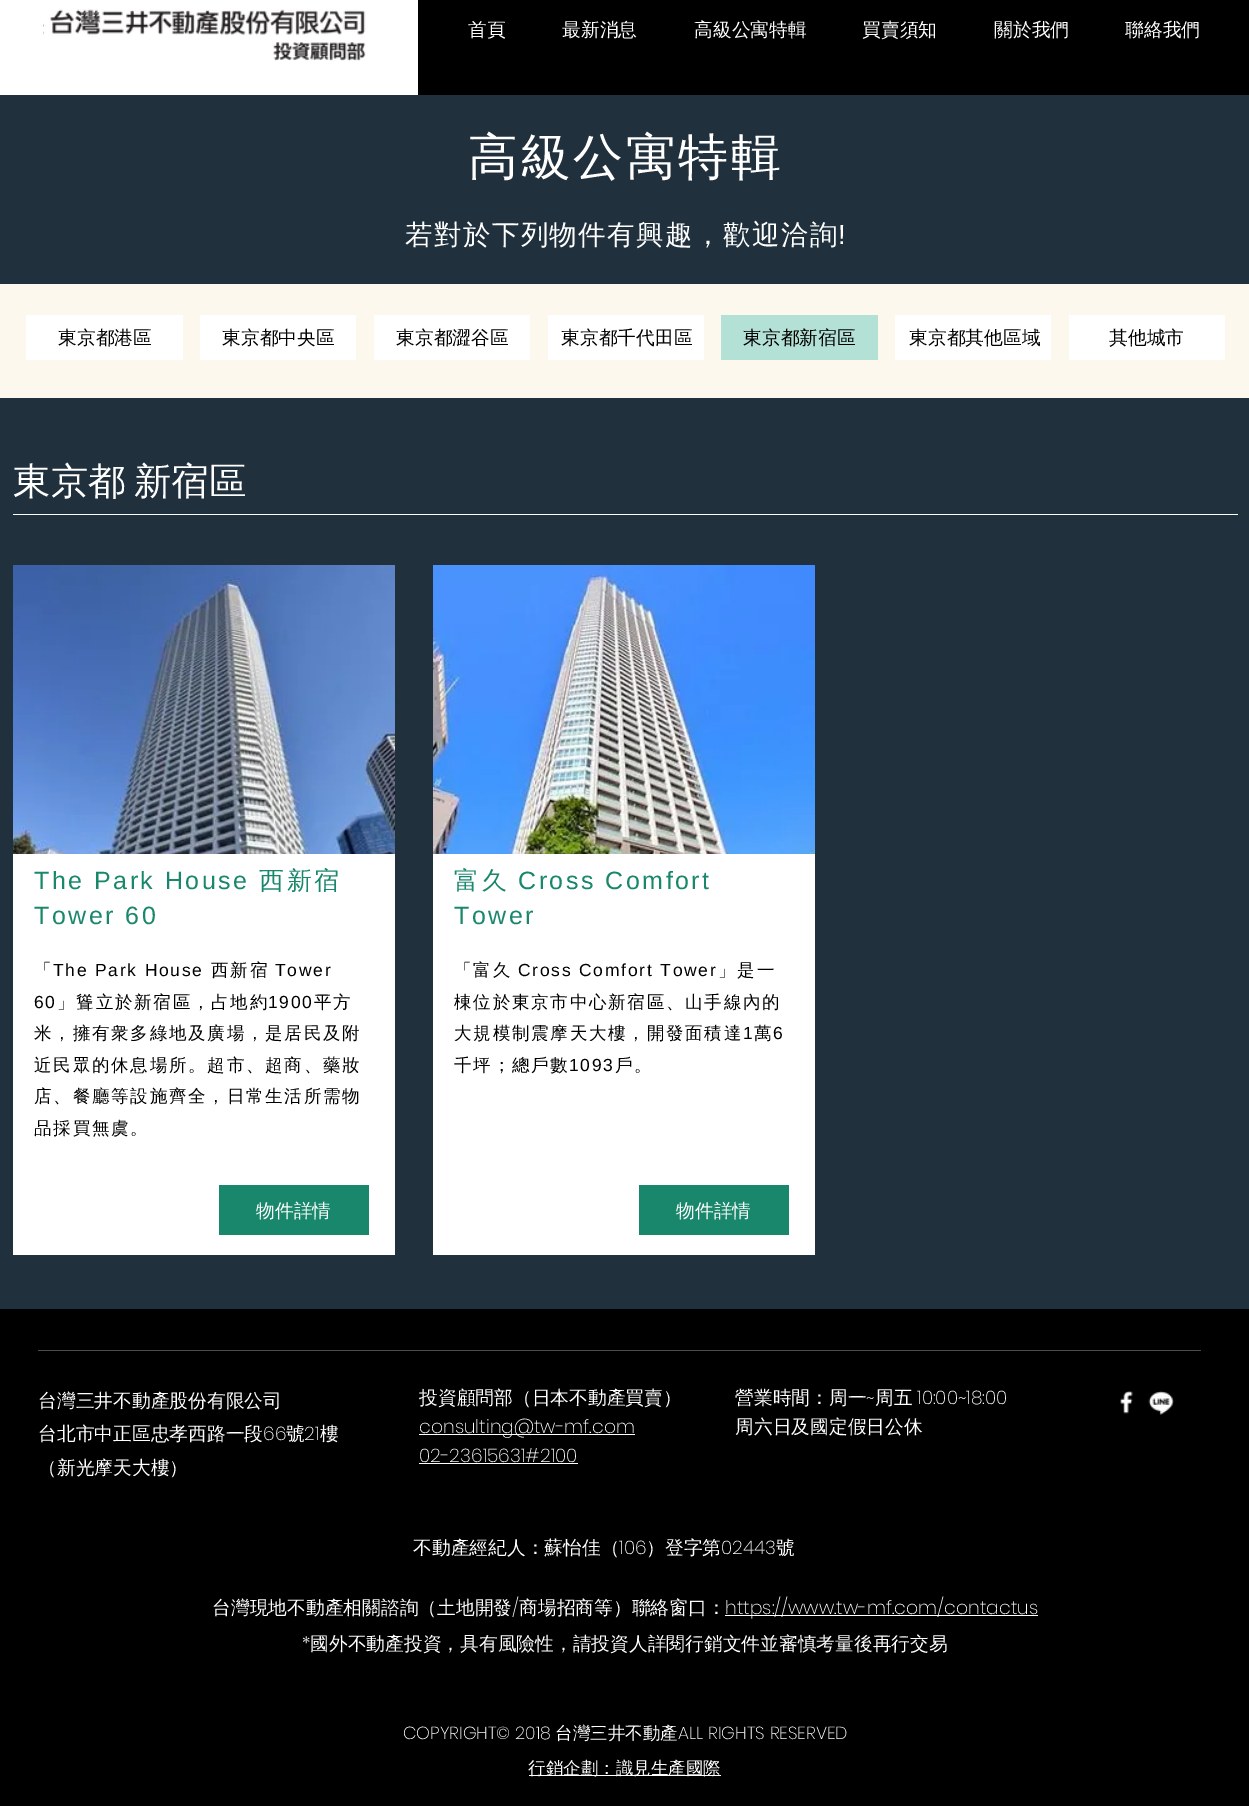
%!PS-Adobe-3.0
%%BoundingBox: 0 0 1249 1806
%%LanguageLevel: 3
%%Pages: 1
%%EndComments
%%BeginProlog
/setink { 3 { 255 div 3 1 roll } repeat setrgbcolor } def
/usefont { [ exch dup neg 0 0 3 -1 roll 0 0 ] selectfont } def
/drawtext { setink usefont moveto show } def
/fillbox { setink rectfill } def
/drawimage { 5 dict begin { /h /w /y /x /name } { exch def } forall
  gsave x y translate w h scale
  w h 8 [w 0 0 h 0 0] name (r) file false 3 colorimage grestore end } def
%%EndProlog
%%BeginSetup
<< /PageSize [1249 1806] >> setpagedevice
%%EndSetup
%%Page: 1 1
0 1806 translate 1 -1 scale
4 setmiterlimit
0 0 1249 1806 252 248 237 fillbox
0 0 418 95 255 255 255 fillbox
(assets/img1.rgb) 43 9 323 52 drawimage
418 0 831 95 0 0 0 fillbox
(首頁) 468 36 /WenQuanYiZenHei-Medium 18.75 255 255 255 drawtext
(最新消息) 562 36 /WenQuanYiZenHei-Medium 18.75 255 255 255 drawtext
(高級公寓特輯) 694 36 /WenQuanYiZenHei-Medium 18.75 255 255 255 drawtext
(買賣須知) 862 36 /WenQuanYiZenHei-Medium 18.75 255 255 255 drawtext
(關於我們) 994 36 /WenQuanYiZenHei-Medium 18.75 255 255 255 drawtext
(聯絡我們) 1125 36 /WenQuanYiZenHei-Medium 18.75 255 255 255 drawtext
0 95 1249 189 32 48 60 fillbox
/WenQuanYiZenHei-Medium 50 usefont
255 255 255 setink
468 174 moveto 2.5 0 (高級公寓特輯) ashow
/WenQuanYiZenHei-Medium 27.5 usefont
405 244 moveto 1.4 0 (若對於下列物件有興趣，歡迎洽詢) ashow
/LiberationSans-Regular 27.5 usefont
838 244 moveto 1.4 0 (!) ashow
26 315 157 45 255 255 255 fillbox
(東京都港區) 58 344 /WenQuanYiZenHei-Medium 18.75 0 0 0 drawtext
200 315 156 45 255 255 255 fillbox
(東京都中央區) 222 344 /WenQuanYiZenHei-Medium 18.75 0 0 0 drawtext
374 315 156 45 255 255 255 fillbox
(東京都澀谷區) 396 344 /WenQuanYiZenHei-Medium 18.75 0 0 0 drawtext
548 315 156 45 255 255 255 fillbox
(東京都千代田區) 561 344 /WenQuanYiZenHei-Medium 18.75 0 0 0 drawtext
721 315 157 45 179 225 213 fillbox
(東京都新宿區) 743 344 /WenQuanYiZenHei-Medium 18.75 0 0 0 drawtext
895 315 156 45 255 255 255 fillbox
(東京都其他區域) 909 344 /WenQuanYiZenHei-Medium 18.75 0 0 0 drawtext
1069 315 156 45 255 255 255 fillbox
(其他城市) 1109 344 /WenQuanYiZenHei-Medium 18.75 0 0 0 drawtext
0 398 1249 911 32 48 60 fillbox
/WenQuanYiZenHei-Medium 37.5 usefont
255 255 255 setink
13 494 moveto -3 0 32 (東京都 新宿區) widthshow
13 514 1225 1 255 255 255 fillbox
13 854 382 401 255 255 255 fillbox
(assets/img2.rgb) 13 565 382 289 drawimage
/LiberationSans-Regular 25 usefont
24 135 107 setink
34 889 moveto 2.5 0 (The Park House) ashow
/WenQuanYiZenHei-Medium 25 usefont
259 889 moveto 2.5 0 (西新宿) ashow
/LiberationSans-Regular 25 usefont
34 924 moveto 2.5 0 (Tower 60) ashow
/WenQuanYiZenHei-Medium 17.5 usefont
0 0 0 setink
34 976 moveto 1.75 0 (「) ashow
/LiberationSans-Regular 17.5 usefont
53 976 moveto 1.75 0 (The Park House) ashow
/WenQuanYiZenHei-Medium 17.5 usefont
211 976 moveto 1.75 0 (西新宿) ashow
/LiberationSans-Regular 17.5 usefont
275 976 moveto 1.75 0 (Tower) ashow
34 1008 moveto 1.75 0 (60) ashow
/WenQuanYiZenHei-Medium 17.5 usefont
57 1008 moveto 1.75 0 (」聳立於新宿區，占地約) ashow
/LiberationSans-Regular 17.5 usefont
268 1008 moveto 1.75 0 (1900) ashow
/WenQuanYiZenHei-Medium 17.5 usefont
314 1008 moveto 1.75 0 (平方) ashow
34 1039 moveto 1.75 0 (米，擁有衆多綠地及廣場，是居民及附) ashow
34 1071 moveto 1.75 0 (近民眾的休息場所。超市、超商、藥妝) ashow
34 1102 moveto 1.75 0 (店、餐廳等設施齊全，日常生活所需物) ashow
34 1134 moveto 1.75 0 (品採買無虞。) ashow
219 1185 150 50 24 135 107 fillbox
(物件詳情) 256 1217 /WenQuanYiZenHei-Medium 18.75 255 255 255 drawtext
433 854 382 401 255 255 255 fillbox
(assets/img3.rgb) 433 565 382 289 drawimage
/WenQuanYiZenHei-Medium 25 usefont
24 135 107 setink
454 889 moveto 2.5 0 (富久) ashow
/LiberationSans-Regular 25 usefont
518 889 moveto 2.5 0 (Cross Comfort) ashow
454 924 moveto 2.5 0 (Tower) ashow
/WenQuanYiZenHei-Medium 17.5 usefont
0 0 0 setink
454 976 moveto 1.75 0 (「富久) ashow
/LiberationSans-Regular 17.5 usefont
518 976 moveto 1.75 0 (Cross Comfort Tower) ashow
/WenQuanYiZenHei-Medium 17.5 usefont
718 976 moveto 1.75 0 (」是一) ashow
454 1008 moveto 1.75 0 (棟位於東京市中心新宿區、山手線內的) ashow
454 1039 moveto 1.75 0 (大規模制震摩天大樓，開發面積達) ashow
/LiberationSans-Regular 17.5 usefont
743 1039 moveto 1.75 0 (1) ashow
/WenQuanYiZenHei-Medium 17.5 usefont
754 1039 moveto 1.75 0 (萬) ashow
/LiberationSans-Regular 17.5 usefont
773 1039 moveto 1.75 0 (6) ashow
/WenQuanYiZenHei-Medium 17.5 usefont
454 1071 moveto 1.75 0 (千坪；總戶數) ashow
/LiberationSans-Regular 17.5 usefont
569 1071 moveto 1.75 0 (1093) ashow
/WenQuanYiZenHei-Medium 17.5 usefont
615 1071 moveto 1.75 0 (戶。) ashow
639 1185 150 50 24 135 107 fillbox
(物件詳情) 676 1217 /WenQuanYiZenHei-Medium 18.75 255 255 255 drawtext
0 1309 1249 497 0 0 0 fillbox
38 1350 1163 1 77 77 77 fillbox
(台灣三井不動產股份有限公司) 38 1407 /WenQuanYiZenHei-Medium 18.75 255 255 255 drawtext
(台北市中正區忠孝西路一段) 38 1440 /WenQuanYiZenHei-Medium 18.75 255 255 255 drawtext
(66) 263 1440 /Poppins-ExtraLight 18.75 255 255 255 drawtext
(號) 286 1440 /WenQuanYiZenHei-Medium 18.75 255 255 255 drawtext
(21) 304 1440 /Poppins-ExtraLight 18.75 255 255 255 drawtext
(樓) 320 1440 /WenQuanYiZenHei-Medium 18.75 255 255 255 drawtext
(（新光摩天大樓）) 38 1474 /WenQuanYiZenHei-Medium 18.75 255 255 255 drawtext
(投資顧問部（日本不動產買賣）) 419 1404 /WenQuanYiZenHei-Medium 18.75 255 255 255 drawtext
419 1434 216 1 255 255 255 fillbox
(consulting@tw-mf.com) 419 1433 /Poppins-ExtraLight 18.75 255 255 255 drawtext
(02-23615631#2100) 419 1462 /Poppins-ExtraLight 18.75 255 255 255 drawtext
419 1463 159 1 255 255 255 fillbox
(營業時間：周一) 735 1404 /WenQuanYiZenHei-Medium 18.75 255 255 255 drawtext
(~) 866 1404 /Poppins-ExtraLight 18.75 255 255 255 drawtext
(周五) 875 1404 /WenQuanYiZenHei-Medium 18.75 255 255 255 drawtext
(10:00~18:00) 917 1404 /Poppins-ExtraLight 18.75 255 255 255 drawtext
(周六日及國定假日公休) 735 1433 /WenQuanYiZenHei-Medium 18.75 255 255 255 drawtext
(assets/img4.rgb) 1120 1391 13 23 drawimage
(assets/img5.rgb) 1148 1391 26 24 drawimage
(不動產經紀人：蘇怡佳（) 413 1554 /WenQuanYiZenHei-Medium 18.75 255 255 255 drawtext
(106) 619 1554 /Poppins-ExtraLight 18.75 255 255 255 drawtext
(）登字第) 646 1554 /WenQuanYiZenHei-Medium 18.75 255 255 255 drawtext
(02443) 721 1554 /Poppins-ExtraLight 18.75 255 255 255 drawtext
(號) 776 1554 /WenQuanYiZenHei-Medium 18.75 255 255 255 drawtext
(台灣現地不動產相關諮詢（土地開發) 212 1614 /WenQuanYiZenHei-Medium 18.75 255 255 255 drawtext
(/) 512 1614 /Poppins-ExtraLight 18.75 255 255 255 drawtext
(商場招商等）聯絡窗口：) 519 1614 /WenQuanYiZenHei-Medium 18.75 255 255 255 drawtext
725 1615 313 1 255 255 255 fillbox
(https://www.tw-mf.com/contactus) 725 1614 /Poppins-ExtraLight 18.75 255 255 255 drawtext
(*) 302 1650 /Poppins-ExtraLight 18.75 255 255 255 drawtext
(國外不動產投資，具有風險性，請投資人詳閱行銷文件並審慎考量後再行交易) 310 1650 /WenQuanYiZenHei-Medium 18.75 255 255 255 drawtext
(COPYRIGHT© 2018) 403 1739 /Poppins-ExtraLight 17.5 255 255 255 drawtext
(台灣三井不動產) 555 1739 /WenQuanYiZenHei-Medium 17.5 255 255 255 drawtext
(ALL RIGHTS RESERVED) 678 1739 /Poppins-ExtraLight 17.5 255 255 255 drawtext
529 1775 192 1 255 255 255 fillbox
(行銷企劃：識見生產國際) 528 1774 /WenQuanYiZenHei-Medium 17.5 255 255 255 drawtext
showpage
%%EOF
